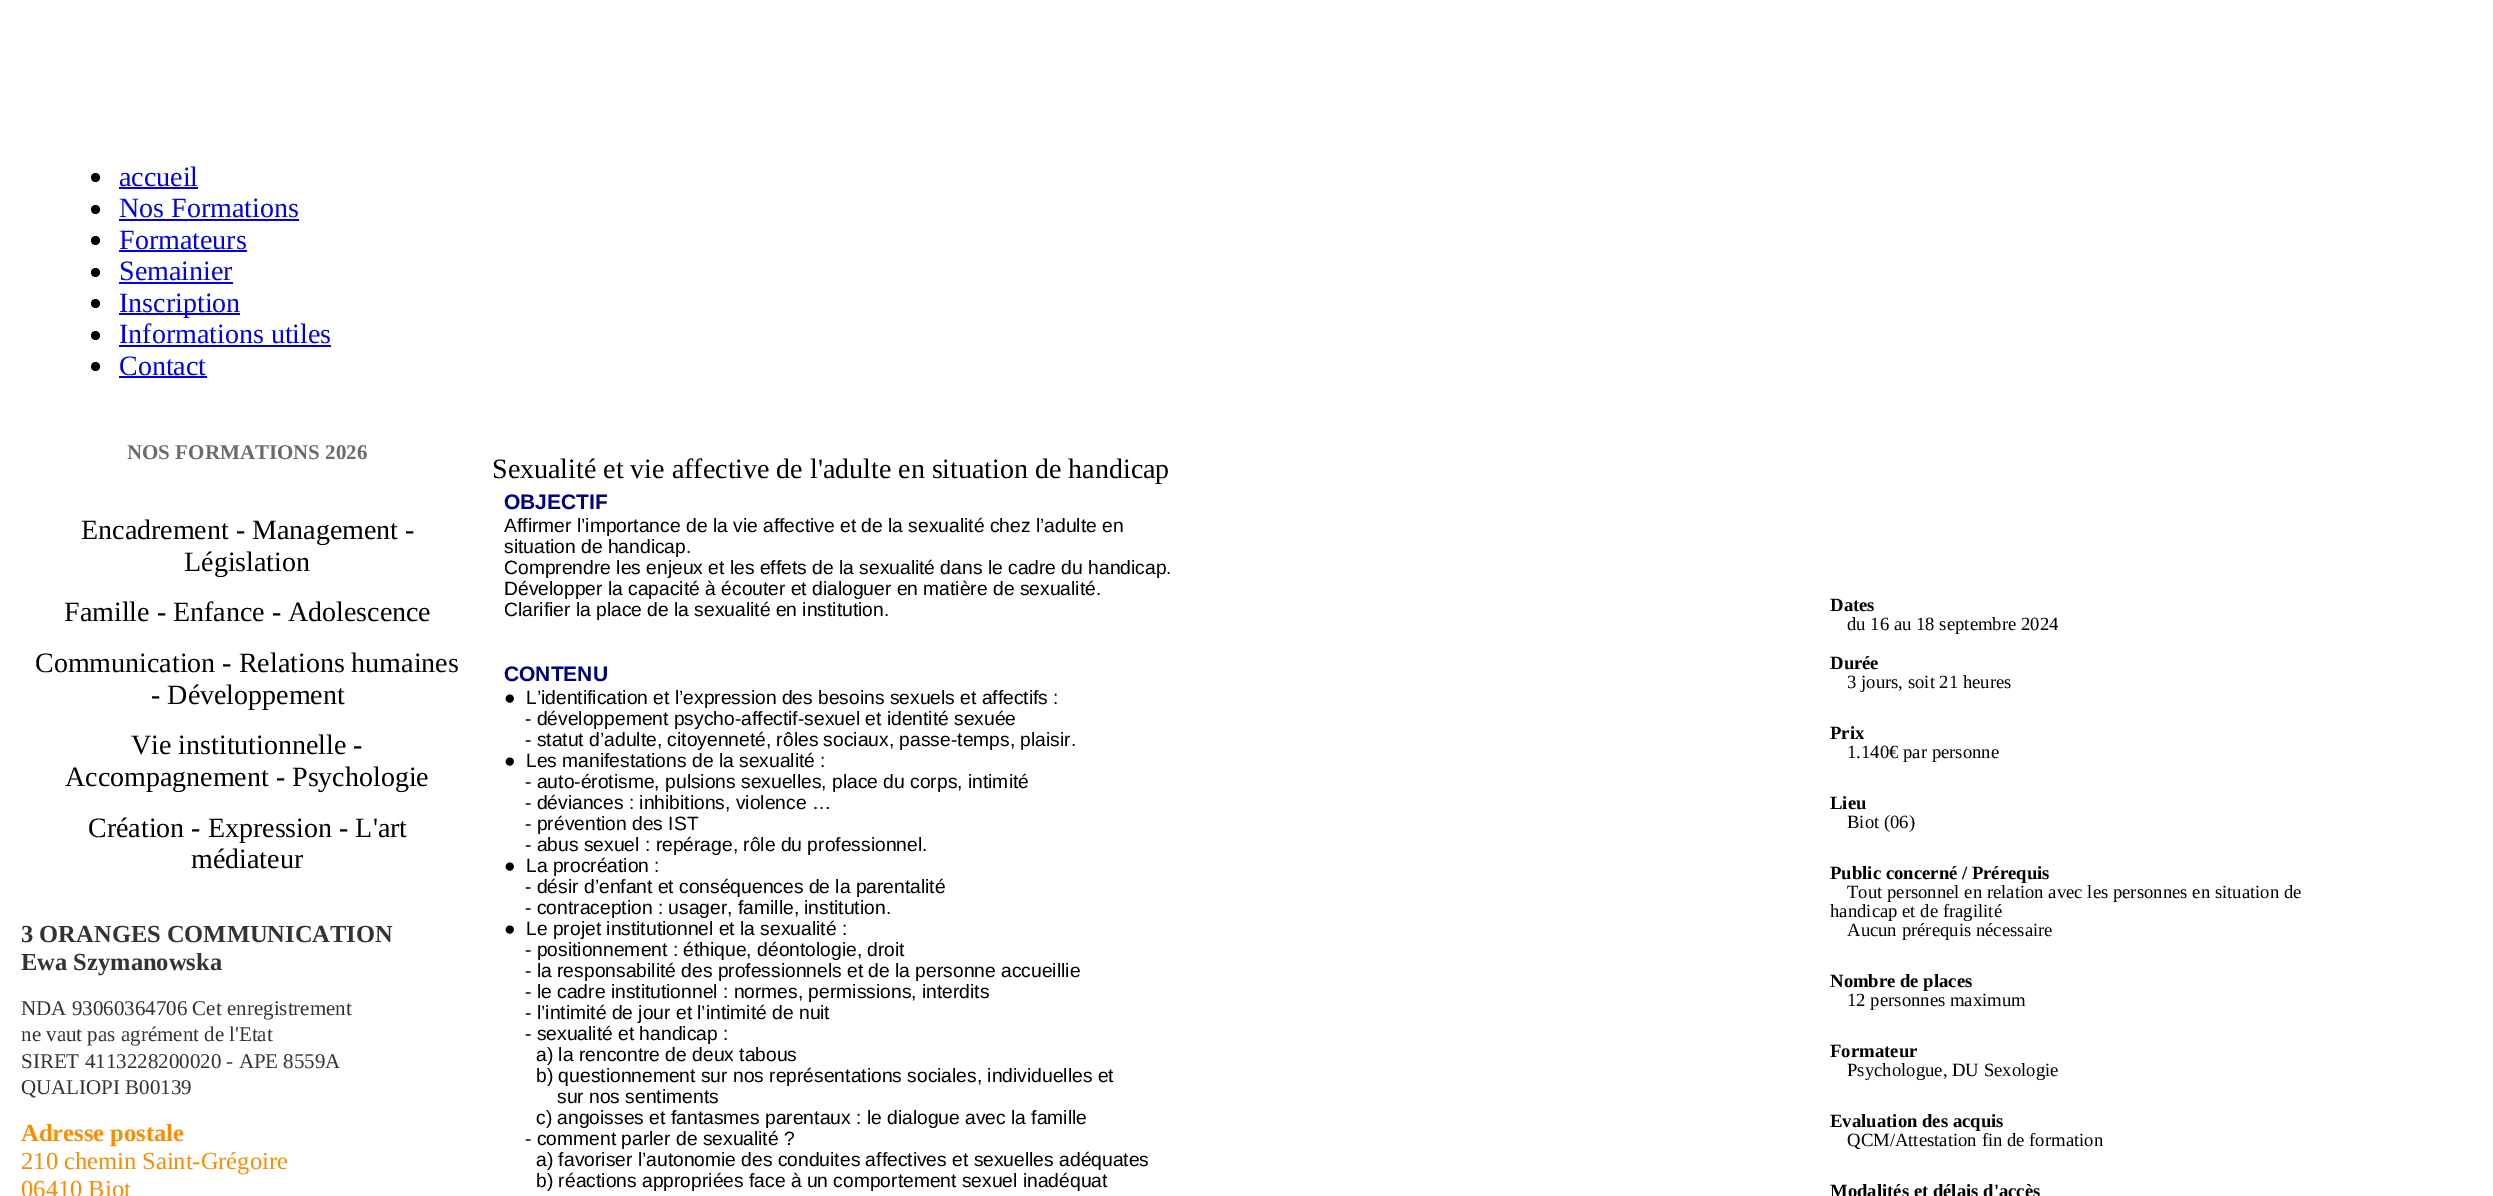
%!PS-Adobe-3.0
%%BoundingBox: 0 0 2493 1196
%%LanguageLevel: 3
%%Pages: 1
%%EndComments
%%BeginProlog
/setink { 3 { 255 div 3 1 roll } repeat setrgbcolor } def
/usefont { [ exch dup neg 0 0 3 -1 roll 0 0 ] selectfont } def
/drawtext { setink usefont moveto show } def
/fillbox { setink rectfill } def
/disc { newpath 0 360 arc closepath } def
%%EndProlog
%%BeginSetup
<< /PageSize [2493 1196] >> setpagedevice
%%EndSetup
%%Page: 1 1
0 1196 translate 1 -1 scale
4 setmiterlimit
0 0 2493 1196 255 255 255 fillbox
0 0 0 setink
95.5 177.5 4.5 disc fill
(accueil) 119 186 /LiberationSerif-Regular 28 0 0 238 drawtext
119 187 79 2 0 0 238 fillbox
0 0 0 setink
95.5 209.5 4.5 disc fill
(Nos Formations) 119 217 /LiberationSerif-Regular 28 0 0 238 drawtext
119 219 180 2 0 0 238 fillbox
0 0 0 setink
95.5 240.5 4.5 disc fill
(Formateurs) 119 249 /LiberationSerif-Regular 28 0 0 238 drawtext
119 250 128 2 0 0 238 fillbox
0 0 0 setink
95.5 272.5 4.5 disc fill
(Semainier) 119 280 /LiberationSerif-Regular 28 0 0 238 drawtext
119 282 114 2 0 0 238 fillbox
0 0 0 setink
95.5 303.5 4.5 disc fill
119 313 121 2 0 0 238 fillbox
(Inscription) 119 312 /LiberationSerif-Regular 28 0 0 238 drawtext
0 0 0 setink
95.5 335.5 4.5 disc fill
(Informations utiles) 119 343 /LiberationSerif-Regular 28 0 0 238 drawtext
119 345 212 2 0 0 238 fillbox
0 0 0 setink
95.5 366.5 4.5 disc fill
(Contact) 119 375 /LiberationSerif-Regular 28 0 0 238 drawtext
119 376 88 2 0 0 238 fillbox
(NOS FORMATIONS 2026) 127 459 /LiberationSerif-Bold 21 105 108 103 drawtext
(Encadrement - Management -) 81 539 /LiberationSerif-Regular 28 0 0 0 drawtext
(Législation) 184 571 /LiberationSerif-Regular 28 0 0 0 drawtext
(Famille - Enfance - Adolescence) 64 621 /LiberationSerif-Regular 28 0 0 0 drawtext
(Communication - Relations humaines) 35 672 /LiberationSerif-Regular 28 0 0 0 drawtext
(- Développement) 151 704 /LiberationSerif-Regular 28 0 0 0 drawtext
(Vie institutionnelle -) 131 754 /LiberationSerif-Regular 28 0 0 0 drawtext
(Accompagnement - Psychologie) 65 786 /LiberationSerif-Regular 28 0 0 0 drawtext
(Création - Expression - L'art) 88 837 /LiberationSerif-Regular 28 0 0 0 drawtext
(médiateur) 191 868 /LiberationSerif-Regular 28 0 0 0 drawtext
(3 ORANGES COMMUNICATION) 21 942 /LiberationSerif-Bold 24.5 51 51 51 drawtext
(Ewa Szymanowska) 21 970 /LiberationSerif-Bold 24.5 51 51 51 drawtext
(NDA 93060364706 Cet enregistrement) 21 1015 /LiberationSerif-Regular 21 51 51 51 drawtext
(ne vaut pas agrément de l'Etat) 21 1041 /LiberationSerif-Regular 21 51 51 51 drawtext
(SIRET 4113228200020 - APE 8559A) 21 1068 /LiberationSerif-Regular 21 51 51 51 drawtext
(QUALIOPI B00139) 21 1094 /LiberationSerif-Regular 21 51 51 51 drawtext
(Adresse postale) 21 1141 /LiberationSerif-Bold 24.5 255 140 0 drawtext
(210 chemin Saint-Grégoire) 21 1169 /LiberationSerif-Regular 24.5 255 140 0 drawtext
(06410 Biot) 21 1197 /LiberationSerif-Regular 24.5 255 140 0 drawtext
(Sexualité et vie affective de l'adulte en situation de handicap) 492 478 /LiberationSerif-Regular 28 0 0 0 drawtext
(OBJECTIF) 504 509 /LiberationSans-Bold 21 0 0 128 drawtext
(Affirmer l’importance de la vie affective et de la sexualité chez l’adulte en) 504 532 /LiberationSans-Regular 19.25 0 0 0 drawtext
(situation de handicap.) 504 553 /LiberationSans-Regular 19.25 0 0 0 drawtext
(Comprendre les enjeux et les effets de la sexualité dans le cadre du handicap.) 504 574 /LiberationSans-Regular 19.25 0 0 0 drawtext
(Développer la capacité à écouter et dialoguer en matière de sexualité.) 504 595 /LiberationSans-Regular 19.25 0 0 0 drawtext
(Clarifier la place de la sexualité en institution.) 504 616 /LiberationSans-Regular 19.25 0 0 0 drawtext
(CONTENU) 504 681 /LiberationSans-Bold 21 0 0 128 drawtext
(●) 504 704 /LiberationSans-Regular 19.25 0 0 0 drawtext
(L’identification et l’expression des besoins sexuels et affectifs :) 526 704 /LiberationSans-Regular 19.25 0 0 0 drawtext
(- développement psycho-affectif-sexuel et identité sexuée) 525 725 /LiberationSans-Regular 19.25 0 0 0 drawtext
(- statut d’adulte, citoyenneté, rôles sociaux, passe-temps, plaisir.) 525 746 /LiberationSans-Regular 19.25 0 0 0 drawtext
(●) 504 767 /LiberationSans-Regular 19.25 0 0 0 drawtext
(Les manifestations de la sexualité :) 526 767 /LiberationSans-Regular 19.25 0 0 0 drawtext
(- auto-érotisme, pulsions sexuelles, place du corps, intimité) 525 788 /LiberationSans-Regular 19.25 0 0 0 drawtext
(- déviances : inhibitions, violence …) 525 809 /LiberationSans-Regular 19.25 0 0 0 drawtext
(- prévention des IST) 525 830 /LiberationSans-Regular 19.25 0 0 0 drawtext
(- abus sexuel : repérage, rôle du professionnel.) 525 851 /LiberationSans-Regular 19.25 0 0 0 drawtext
(●) 504 872 /LiberationSans-Regular 19.25 0 0 0 drawtext
(La procréation :) 526 872 /LiberationSans-Regular 19.25 0 0 0 drawtext
(- désir d’enfant et conséquences de la parentalité) 525 893 /LiberationSans-Regular 19.25 0 0 0 drawtext
(- contraception : usager, famille, institution.) 525 914 /LiberationSans-Regular 19.25 0 0 0 drawtext
(●) 504 935 /LiberationSans-Regular 19.25 0 0 0 drawtext
(Le projet institutionnel et la sexualité :) 526 935 /LiberationSans-Regular 19.25 0 0 0 drawtext
(- positionnement : éthique, déontologie, droit) 525 956 /LiberationSans-Regular 19.25 0 0 0 drawtext
(- la responsabilité des professionnels et de la personne accueillie) 525 977 /LiberationSans-Regular 19.25 0 0 0 drawtext
(- le cadre institutionnel : normes, permissions, interdits) 525 998 /LiberationSans-Regular 19.25 0 0 0 drawtext
(- l’intimité de jour et l’intimité de nuit) 525 1019 /LiberationSans-Regular 19.25 0 0 0 drawtext
(- sexualité et handicap :) 525 1040 /LiberationSans-Regular 19.25 0 0 0 drawtext
(a\) la rencontre de deux tabous) 536 1061 /LiberationSans-Regular 19.25 0 0 0 drawtext
(b\) questionnement sur nos représentations sociales, individuelles et) 536 1082 /LiberationSans-Regular 19.25 0 0 0 drawtext
(sur nos sentiments) 557 1103 /LiberationSans-Regular 19.25 0 0 0 drawtext
(c\) angoisses et fantasmes parentaux : le dialogue avec la famille) 536 1124 /LiberationSans-Regular 19.25 0 0 0 drawtext
(- comment parler de sexualité ?) 525 1145 /LiberationSans-Regular 19.25 0 0 0 drawtext
(a\) favoriser l’autonomie des conduites affectives et sexuelles adéquates) 536 1166 /LiberationSans-Regular 19.25 0 0 0 drawtext
(b\) réactions appropriées face à un comportement sexuel inadéquat) 536 1187 /LiberationSans-Regular 19.25 0 0 0 drawtext
(Dates) 1830 611 /LiberationSerif-Bold 18.7 0 0 0 drawtext
(du 16 au 18 septembre 2024) 1847 630 /LiberationSerif-Regular 18.7 0 0 0 drawtext
(Durée) 1830 669 /LiberationSerif-Bold 18.7 0 0 0 drawtext
(3 jours, soit 21 heures) 1847 688 /LiberationSerif-Regular 18.7 0 0 0 drawtext
(Prix) 1830 739 /LiberationSerif-Bold 18.7 0 0 0 drawtext
(1.140€ par personne) 1847 758 /LiberationSerif-Regular 18.7 0 0 0 drawtext
(Lieu) 1830 809 /LiberationSerif-Bold 18.7 0 0 0 drawtext
(Biot \(06\)) 1847 828 /LiberationSerif-Regular 18.7 0 0 0 drawtext
(Public concerné / Prérequis) 1830 879 /LiberationSerif-Bold 18.7 0 0 0 drawtext
(Tout personnel en relation avec les personnes en situation de) 1847 898 /LiberationSerif-Regular 18.7 0 0 0 drawtext
(handicap et de fragilité) 1830 917 /LiberationSerif-Regular 18.7 0 0 0 drawtext
(Aucun prérequis nécessaire) 1847 936 /LiberationSerif-Regular 18.7 0 0 0 drawtext
(Nombre de places) 1830 987 /LiberationSerif-Bold 18.7 0 0 0 drawtext
(12 personnes maximum) 1847 1006 /LiberationSerif-Regular 18.7 0 0 0 drawtext
(Formateur) 1830 1057 /LiberationSerif-Bold 18.7 0 0 0 drawtext
(Psychologue, DU Sexologie) 1847 1076 /LiberationSerif-Regular 18.7 0 0 0 drawtext
(Evaluation des acquis) 1830 1127 /LiberationSerif-Bold 18.7 0 0 0 drawtext
(QCM/Attestation fin de formation) 1847 1146 /LiberationSerif-Regular 18.7 0 0 0 drawtext
(Modalités et délais d'accès) 1830 1197 /LiberationSerif-Bold 18.7 0 0 0 drawtext
showpage
%%EOF
